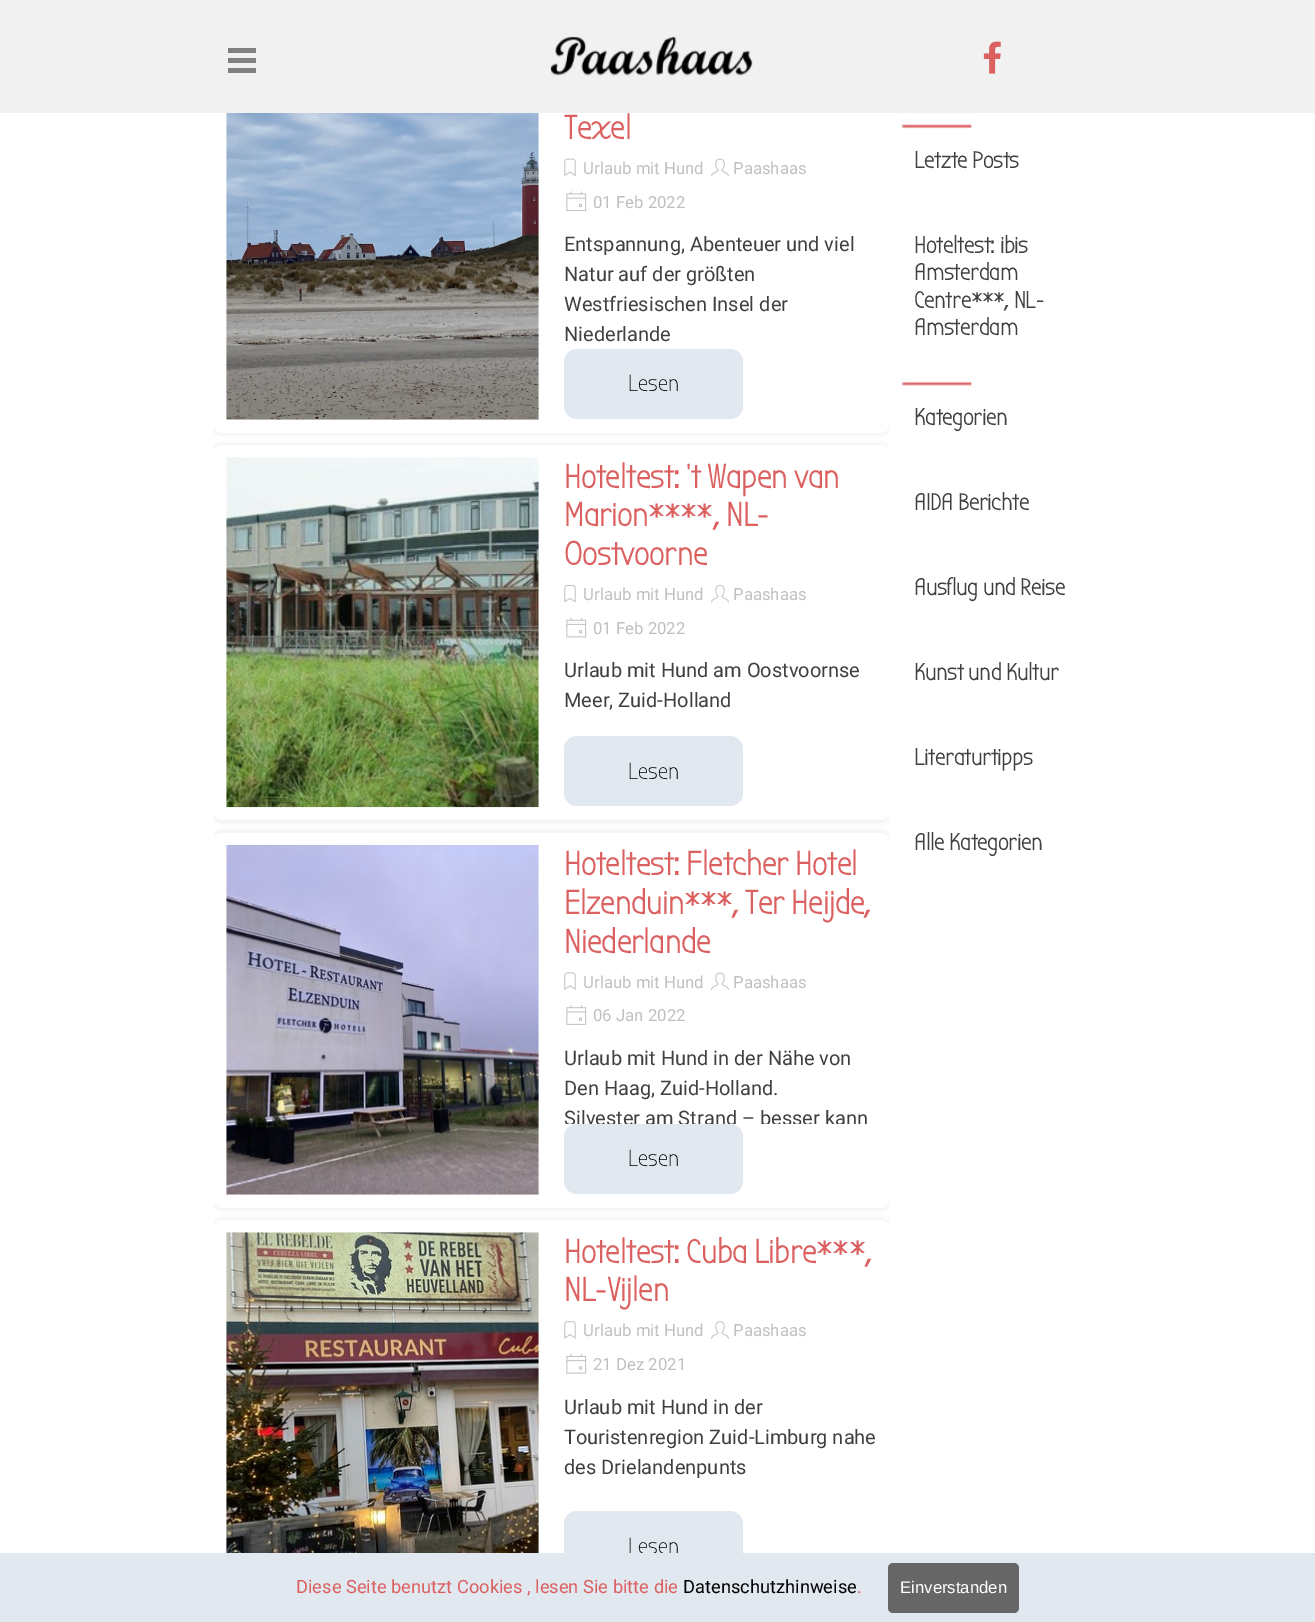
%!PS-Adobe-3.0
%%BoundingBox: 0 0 1315 1622
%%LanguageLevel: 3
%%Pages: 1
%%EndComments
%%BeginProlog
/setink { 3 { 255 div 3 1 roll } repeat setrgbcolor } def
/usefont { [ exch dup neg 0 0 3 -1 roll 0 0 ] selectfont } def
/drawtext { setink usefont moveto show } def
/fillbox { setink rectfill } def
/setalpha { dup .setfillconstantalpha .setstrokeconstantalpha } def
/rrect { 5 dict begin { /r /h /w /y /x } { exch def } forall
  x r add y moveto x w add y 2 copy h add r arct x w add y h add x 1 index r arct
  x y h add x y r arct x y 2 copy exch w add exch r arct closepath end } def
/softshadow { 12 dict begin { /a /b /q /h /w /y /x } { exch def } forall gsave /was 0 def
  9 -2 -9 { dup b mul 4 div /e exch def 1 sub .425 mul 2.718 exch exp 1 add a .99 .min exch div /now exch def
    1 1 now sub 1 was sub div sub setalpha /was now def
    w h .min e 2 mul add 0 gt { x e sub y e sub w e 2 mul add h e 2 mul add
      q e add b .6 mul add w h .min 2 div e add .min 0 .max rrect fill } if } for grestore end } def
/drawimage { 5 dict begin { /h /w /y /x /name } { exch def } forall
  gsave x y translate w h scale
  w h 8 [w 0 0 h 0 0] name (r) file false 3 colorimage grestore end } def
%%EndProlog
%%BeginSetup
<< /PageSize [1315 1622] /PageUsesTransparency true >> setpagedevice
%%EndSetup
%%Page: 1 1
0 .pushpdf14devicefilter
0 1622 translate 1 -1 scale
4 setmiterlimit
0 0 1315 1622 255 255 255 fillbox
gsave
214 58 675 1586 rectclip
242 242 242 setink
211 55 680 380 10 2.5 1 softshadow
grestore
214 58 675 375 8 rrect fill
0 0 1315 113 241 241 241 fillbox
228 48 28 5 128 128 128 fillbox
228 58 28 5 128 128 128 fillbox
228 68 28 5 128 128 128 fillbox
(assets/img1.rgb) 550 36 203 40 drawimage
(assets/img2.rgb) 983 41 18 33 drawimage
(assets/img3.rgb) 226 113 313 307 drawimage
(Texel) 564 139 /BubblerOne-Bold 33.25 219 96 96 drawtext
(assets/img4.rgb) 564 158 12 19 drawimage
(Urlaub mit Hund) 583 174 /Roboto-Regular 16.75 192 192 192 drawtext
(assets/img5.rgb) 711 158 18 19 drawimage
(Paashaas) 733 174 /Roboto-Regular 16.75 192 192 192 drawtext
(assets/img6.rgb) 566 191 21 21 drawimage
(01 Feb 2022) 593 208 /Roboto-Regular 16.75 192 192 192 drawtext
(Entspannung, Abenteuer und viel) 564 251 /Roboto-Regular 20 64 64 64 drawtext
(Natur auf der größten) 564 281 /Roboto-Regular 20 64 64 64 drawtext
(Westfriesischen Insel der) 564 311 /Roboto-Regular 20 64 64 64 drawtext
(Niederlande) 564 341 /Roboto-Regular 20 64 64 64 drawtext
225 232 240 setink
564 349 179 70 13 rrect fill
(Lesen) 628 391 /BubblerOne-Regular 23.25 0 0 0 drawtext
gsave
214 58 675 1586 rectclip
242 242 242 setink
211 443 680 380 10 2.5 1 softshadow
grestore
255 255 255 setink
214 445 675 375 8 rrect fill
(assets/img7.rgb) 226 457 313 351 drawimage
(Hoteltest: 't Wapen van) 564 488 /BubblerOne-Bold 33.25 219 96 96 drawtext
(Marion****, NL-) 564 526 /BubblerOne-Bold 33.25 219 96 96 drawtext
(Oostvoorne) 564 565 /BubblerOne-Bold 33.25 219 96 96 drawtext
(assets/img8.rgb) 564 584 12 19 drawimage
(Urlaub mit Hund) 583 600 /Roboto-Regular 16.75 192 192 192 drawtext
(assets/img9.rgb) 711 585 18 18 drawimage
(Paashaas) 733 600 /Roboto-Regular 16.75 192 192 192 drawtext
(assets/img10.rgb) 566 617 21 21 drawimage
(01 Feb 2022) 593 634 /Roboto-Regular 16.75 192 192 192 drawtext
(Urlaub mit Hund am Oostvoornse) 564 677 /Roboto-Regular 20 64 64 64 drawtext
(Meer, Zuid-Holland) 564 707 /Roboto-Regular 20 64 64 64 drawtext
225 232 240 setink
564 736 179 70 13 rrect fill
(Lesen) 628 779 /BubblerOne-Regular 23.25 0 0 0 drawtext
gsave
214 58 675 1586 rectclip
242 242 242 setink
211 830 680 380 10 2.5 1 softshadow
grestore
255 255 255 setink
214 833 675 375 8 rrect fill
(assets/img11.rgb) 226 844 313 351 drawimage
(Hoteltest: Fletcher Hotel) 564 875 /BubblerOne-Bold 33.25 219 96 96 drawtext
(Elzenduin***, Ter Heijde,) 564 914 /BubblerOne-Bold 33.25 219 96 96 drawtext
(Niederlande) 564 953 /BubblerOne-Bold 33.25 219 96 96 drawtext
(assets/img12.rgb) 564 972 12 18 drawimage
(Urlaub mit Hund) 583 988 /Roboto-Regular 16.75 192 192 192 drawtext
(assets/img13.rgb) 711 972 18 18 drawimage
(Paashaas) 733 988 /Roboto-Regular 16.75 192 192 192 drawtext
(assets/img14.rgb) 566 1005 21 20 drawimage
(06 Jan 2022) 593 1021 /Roboto-Regular 16.75 192 192 192 drawtext
(Urlaub mit Hund in der Nähe von) 564 1065 /Roboto-Regular 20 64 64 64 drawtext
(Den Haag, Zuid-Holland.) 564 1095 /Roboto-Regular 20 64 64 64 drawtext
gsave
564 1040 312 84 rectclip
(Silvester am Strand – besser kann) 564 1125 /Roboto-Regular 20 64 64 64 drawtext
grestore
225 232 240 setink
564 1124 179 70 13 rrect fill
(Lesen) 628 1166 /BubblerOne-Regular 23.25 0 0 0 drawtext
gsave
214 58 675 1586 rectclip
242 242 242 setink
211 1218 680 380 10 2.5 1 softshadow
grestore
255 255 255 setink
214 1220 675 375 8 rrect fill
(assets/img15.rgb) 226 1232 313 321 drawimage
(Hoteltest: Cuba Libre***,) 564 1263 /BubblerOne-Bold 33.25 219 96 96 drawtext
(NL-Vijlen) 564 1301 /BubblerOne-Bold 33.25 219 96 96 drawtext
(assets/img16.rgb) 564 1321 12 18 drawimage
(Urlaub mit Hund) 583 1336 /Roboto-Regular 16.75 192 192 192 drawtext
(assets/img17.rgb) 711 1321 18 18 drawimage
(Paashaas) 733 1336 /Roboto-Regular 16.75 192 192 192 drawtext
(assets/img18.rgb) 566 1353 21 21 drawimage
(21 Dez 2021) 593 1370 /Roboto-Regular 16.75 192 192 192 drawtext
(Urlaub mit Hund in der) 564 1414 /Roboto-Regular 20 64 64 64 drawtext
(Touristenregion Zuid-Limburg nahe) 564 1444 /Roboto-Regular 20 64 64 64 drawtext
(des Drielandenpunts) 564 1474 /Roboto-Regular 20 64 64 64 drawtext
225 232 240 setink
564 1511 179 70 13 rrect fill
(Lesen) 628 1554 /BubblerOne-Regular 23.25 0 0 0 drawtext
(assets/img19.rgb) 901 119 72 10 drawimage
(Letzte Posts) 914 168 /BubblerOne-Bold 23.25 64 64 64 drawtext
(Hoteltest: ibis) 914 253 /BubblerOne-Bold 23.25 64 64 64 drawtext
(Amsterdam) 914 280 /BubblerOne-Bold 23.25 64 64 64 drawtext
(Centre***, NL-) 914 308 /BubblerOne-Bold 23.25 64 64 64 drawtext
(Amsterdam) 914 335 /BubblerOne-Bold 23.25 64 64 64 drawtext
(assets/img20.rgb) 901 376 71 10 drawimage
(Kategorien) 914 425 /BubblerOne-Bold 23.25 64 64 64 drawtext
(AIDA Berichte) 914 510 /BubblerOne-Bold 23.25 64 64 64 drawtext
(Ausflug und Reise) 914 595 /BubblerOne-Bold 23.25 64 64 64 drawtext
(Kunst und Kultur) 914 680 /BubblerOne-Bold 23.25 64 64 64 drawtext
(Literaturtipps) 914 765 /BubblerOne-Bold 23.25 64 64 64 drawtext
(Alle Kategorien) 914 850 /BubblerOne-Bold 23.25 64 64 64 drawtext
0 1553 1315 69 225 232 240 fillbox
(Diese Seite benutzt Cookies , lesen Sie bitte die) 296 1593 /Roboto-Regular 18.3 219 96 96 drawtext
(Datenschutzhinweise) 683 1593 /Roboto-Regular 18.3 0 0 0 drawtext
(.) 857 1593 /Roboto-Regular 18.3 219 96 96 drawtext
102 102 102 setink
888 1563 131 50 5 rrect fill
(Einverstanden) 900 1593 /LiberationSans-Regular 16.75 255 255 255 drawtext
.poppdf14devicefilter showpage
%%EOF
